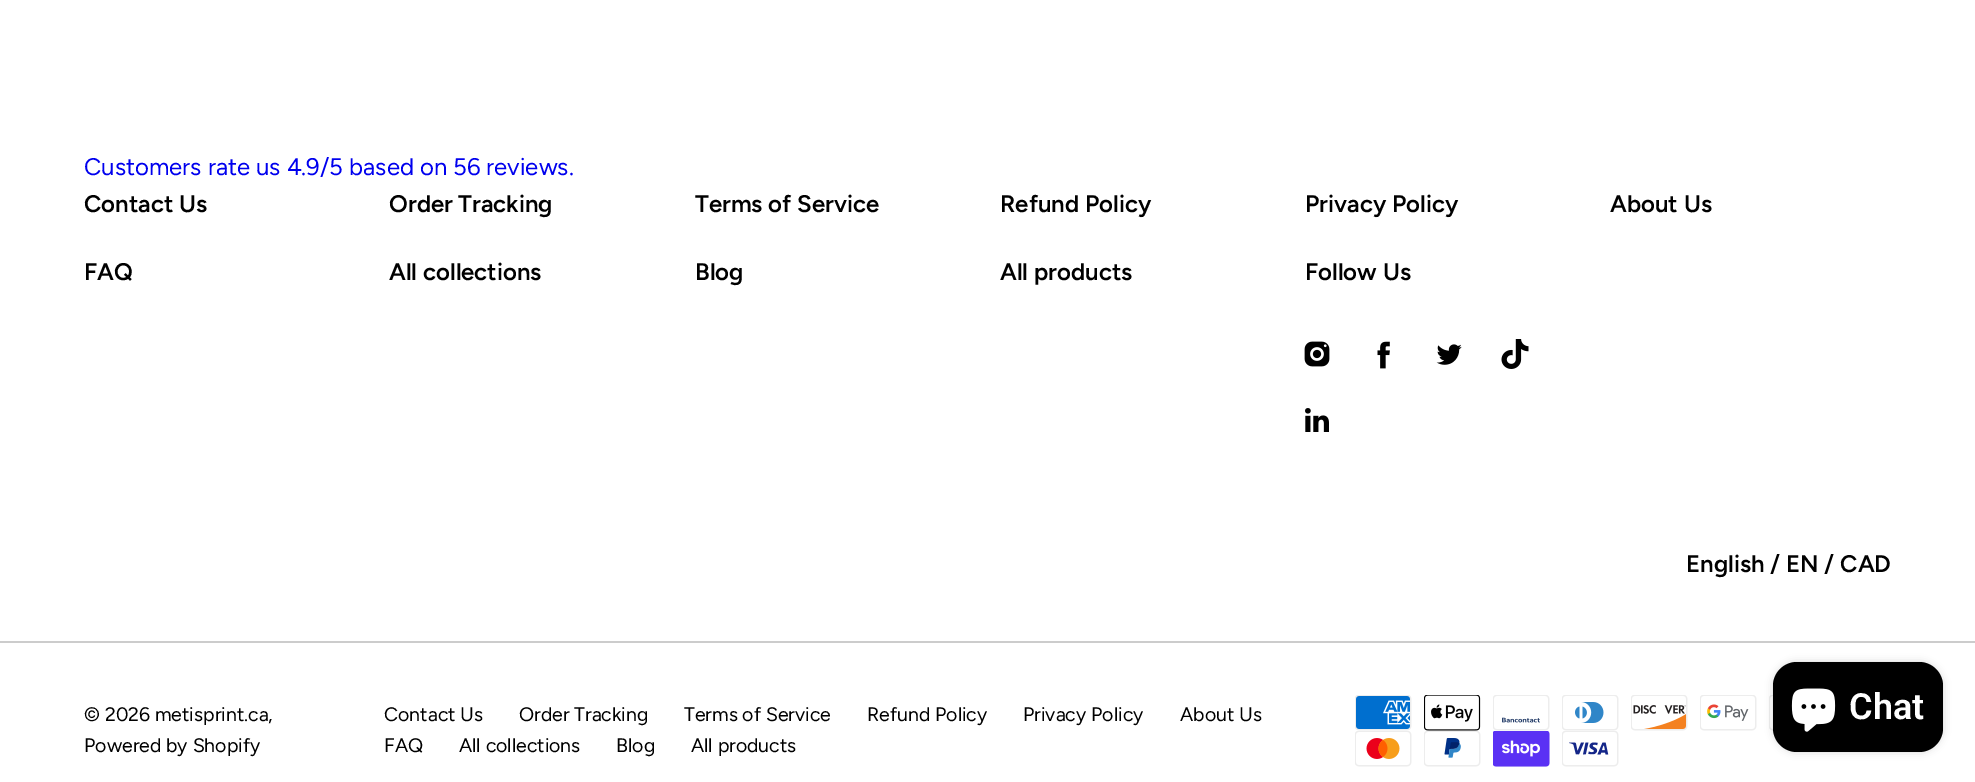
%!PS-Adobe-3.0
%%BoundingBox: 0 0 1975 782
%%LanguageLevel: 3
%%Pages: 1
%%EndComments
%%BeginProlog
/setink { 3 { 255 div 3 1 roll } repeat setrgbcolor } def
/usefont { [ exch dup neg 0 0 3 -1 roll 0 0 ] selectfont } def
/drawtext { setink usefont moveto show } def
/fillbox { setink rectfill } def
/setalpha { dup .setfillconstantalpha .setstrokeconstantalpha } def
/rrect { 5 dict begin { /r /h /w /y /x } { exch def } forall
  x r add y moveto x w add y 2 copy h add r arct x w add y h add x 1 index r arct
  x y h add x y r arct x y 2 copy exch w add exch r arct closepath end } def
/softshadow { 12 dict begin { /a /b /q /h /w /y /x } { exch def } forall gsave /was 0 def
  9 -2 -9 { dup b mul 4 div /e exch def 1 sub .425 mul 2.718 exch exp 1 add a .99 .min exch div /now exch def
    1 1 now sub 1 was sub div sub setalpha /was now def
    w h .min e 2 mul add 0 gt { x e sub y e sub w e 2 mul add h e 2 mul add
      q e add b .6 mul add w h .min 2 div e add .min 0 .max rrect fill } if } for grestore end } def
/drawimage { 5 dict begin { /h /w /y /x /name } { exch def } forall
  gsave x y translate w h scale
  w h 8 [w 0 0 h 0 0] name (r) file false 3 colorimage grestore end } def
%%EndProlog
%%BeginSetup
<< /PageSize [1975 782] /PageUsesTransparency true >> setpagedevice
%%EndSetup
%%Page: 1 1
0 .pushpdf14devicefilter
0 782 translate 1 -1 scale
4 setmiterlimit
0 0 1975 782 255 255 255 fillbox
(Customers rate us 4.9/5 based on 56 reviews.) 84 175 /Figtree-Regular 24 0 0 238 drawtext
(Contact Us) 84 212 /Figtree-SemiBold 24 0 0 0 drawtext
(Order Tracking) 389 212 /Figtree-SemiBold 24 0 0 0 drawtext
(Terms of Service) 695 212 /Figtree-SemiBold 24 0 0 0 drawtext
(Refund Policy) 1000 212 /Figtree-SemiBold 24 0 0 0 drawtext
(Privacy Policy) 1305 212 /Figtree-SemiBold 24 0 0 0 drawtext
(About Us) 1610 212 /Figtree-SemiBold 24 0 0 0 drawtext
(FAQ) 84 280 /Figtree-SemiBold 24 0 0 0 drawtext
(All collections) 389 280 /Figtree-SemiBold 24 0 0 0 drawtext
(Blog) 695 280 /Figtree-SemiBold 24 0 0 0 drawtext
(All products) 1000 280 /Figtree-SemiBold 24 0 0 0 drawtext
(Follow Us) 1305 280 /Figtree-SemiBold 24 0 0 0 drawtext
(assets/img1.rgb) 1304 341 26 26 drawimage
(assets/img2.rgb) 1377 341 13 28 drawimage
(assets/img3.rgb) 1436 344 26 21 drawimage
(assets/img4.rgb) 1501 339 28 30 drawimage
(assets/img5.rgb) 1305 408 24 24 drawimage
(English / EN / CAD) 1686 572 /Figtree-SemiBold 24 0 0 0 drawtext
0 641 1975 2 204 204 204 fillbox
(© 2026 metisprint.ca,) 84 721 /Figtree-Regular 19.5 0 0 0 drawtext
(Powered by Shopify) 84 752 /Figtree-Regular 19.5 0 0 0 drawtext
(Contact Us) 384 721 /Figtree-Regular 19.5 0 0 0 drawtext
(Order Tracking) 519 721 /Figtree-Regular 19.5 0 0 0 drawtext
(Terms of Service) 684 721 /Figtree-Regular 19.5 0 0 0 drawtext
(Refund Policy) 867 721 /Figtree-Regular 19.5 0 0 0 drawtext
(Privacy Policy) 1023 721 /Figtree-Regular 19.5 0 0 0 drawtext
(About Us) 1180 721 /Figtree-Regular 19.5 0 0 0 drawtext
(FAQ) 384 752 /Figtree-Regular 19.5 0 0 0 drawtext
(All collections) 459 752 /Figtree-Regular 19.5 0 0 0 drawtext
(Blog) 616 752 /Figtree-Regular 19.5 0 0 0 drawtext
(All products) 691 752 /Figtree-Regular 19.5 0 0 0 drawtext
(assets/img6.rgb) 1355 695 57 36 drawimage
(assets/img7.rgb) 1424 695 57 36 drawimage
(assets/img8.rgb) 1493 695 57 36 drawimage
(assets/img9.rgb) 1562 695 57 36 drawimage
(assets/img10.rgb) 1631 695 57 36 drawimage
(assets/img11.rgb) 1700 695 57 36 drawimage
(assets/img12.rgb) 1769 695 5 36 drawimage
(assets/img13.rgb) 1355 731 57 36 drawimage
(assets/img14.rgb) 1424 731 57 36 drawimage
(assets/img15.rgb) 1493 731 57 36 drawimage
(assets/img16.rgb) 1562 731 57 36 drawimage
1773 662 170 90 24 4 0.15 softshadow
1773 662 170 90 24 rrect fill
(assets/img17.rgb) 1791 688 45 44 drawimage
(Chat) 1849 719 /Roboto-SemiBold 36 255 255 255 drawtext
.poppdf14devicefilter showpage
%%EOF
